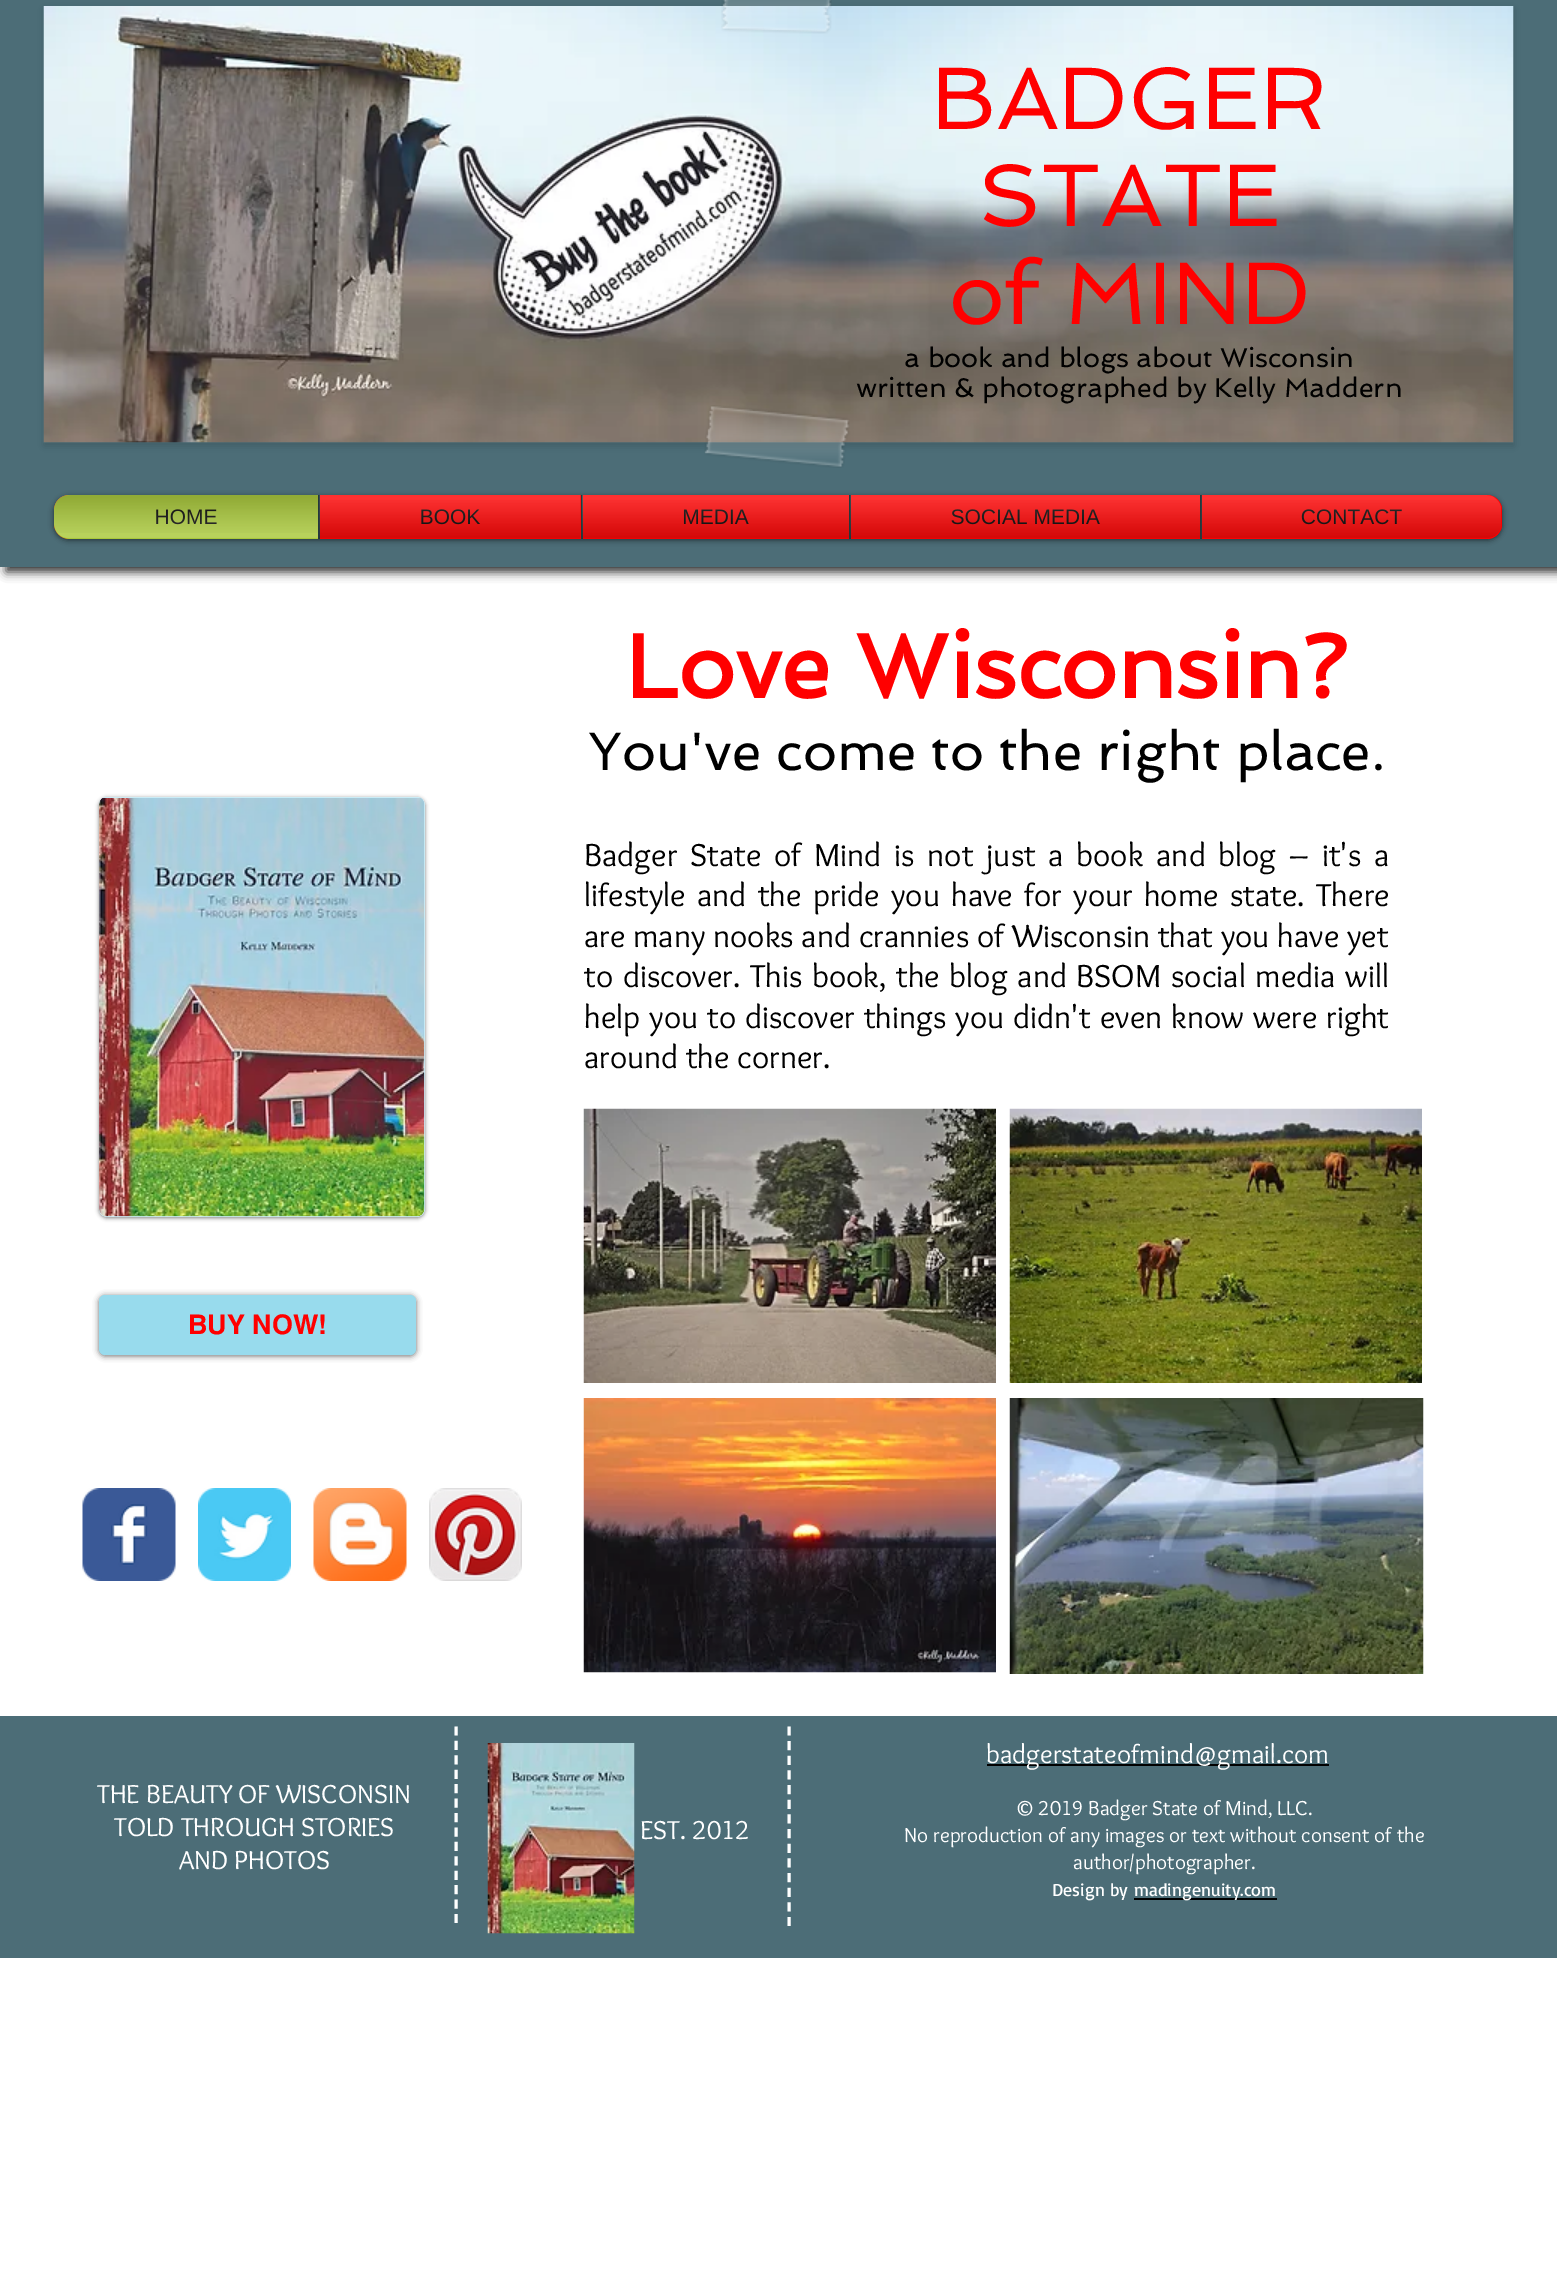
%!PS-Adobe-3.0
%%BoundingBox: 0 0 1557 2280
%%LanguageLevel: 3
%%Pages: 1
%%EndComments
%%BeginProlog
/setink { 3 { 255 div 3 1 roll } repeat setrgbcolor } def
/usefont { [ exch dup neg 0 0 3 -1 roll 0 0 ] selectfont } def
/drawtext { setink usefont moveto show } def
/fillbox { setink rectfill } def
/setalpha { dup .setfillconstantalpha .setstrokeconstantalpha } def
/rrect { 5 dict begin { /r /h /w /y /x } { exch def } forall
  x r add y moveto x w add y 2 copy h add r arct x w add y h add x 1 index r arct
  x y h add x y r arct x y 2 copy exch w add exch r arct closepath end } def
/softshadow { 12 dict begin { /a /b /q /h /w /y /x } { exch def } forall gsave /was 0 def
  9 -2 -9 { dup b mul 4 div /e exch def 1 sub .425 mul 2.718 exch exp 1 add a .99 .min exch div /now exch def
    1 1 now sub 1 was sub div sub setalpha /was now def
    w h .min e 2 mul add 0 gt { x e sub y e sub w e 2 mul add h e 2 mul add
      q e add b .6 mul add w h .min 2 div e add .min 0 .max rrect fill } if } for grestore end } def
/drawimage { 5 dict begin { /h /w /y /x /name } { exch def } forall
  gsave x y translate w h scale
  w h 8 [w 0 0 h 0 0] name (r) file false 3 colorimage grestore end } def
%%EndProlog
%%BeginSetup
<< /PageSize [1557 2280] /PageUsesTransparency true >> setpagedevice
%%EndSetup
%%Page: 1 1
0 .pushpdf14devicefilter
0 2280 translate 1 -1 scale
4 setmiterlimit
0 0 1557 2280 255 255 255 fillbox
0 0 0 setink
6 5 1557 567 0 5 0.8 softshadow
0 0 1557 567 76 109 119 fillbox
0 0 0 setink
44 9 1470 437 0 4 0.15 softshadow
(assets/img1.rgb) 43 6 1471 437 drawimage
(assets/img2.rgb) 721 0 111 34 drawimage
(assets/img3.rgb) 704 405 146 63 drawimage
(BADGER) 931 129 /Spinnaker-Regular 88.5 255 0 0 drawtext
(STATE) 978 226 /Spinnaker-Regular 88.5 255 0 0 drawtext
(of MIND) 949 324 /Spinnaker-Regular 88.5 255 0 0 drawtext
(a book and blogs about Wisconsin) 904 367 /Spinnaker-Regular 27 0 0 0 drawtext
(written & photographed by Kelly Maddern) 856 397 /Spinnaker-Regular 27 0 0 0 drawtext
54 497 1448 43 15 3 0.6 softshadow
(assets/img4.rgb) 54 495 1448 37 drawimage
(assets/img5.rgb) 54 502 8 35 drawimage
167 199 53 setink
69 495 moveto 318 495 lineto 318 539 lineto 69 539 lineto 60.5 539 54 532.5 54 524 curveto 54 510 lineto 54 501.5 60.5 495 69 495 curveto closepath fill
(HOME) 155 524 /LiberationSans-Regular 21 0 0 0 drawtext
(assets/img6.rgb) 54 495 264 38 drawimage
(assets/img7.rgb) 54 495 264 44 drawimage
320 495 261 44 255 0 0 fillbox
318 495 2 44 38 55 59 fillbox
(BOOK) 420 524 /LiberationSans-Regular 21 0 0 0 drawtext
(assets/img8.rgb) 319 495 262 43 drawimage
(assets/img9.rgb) 319 500 262 39 drawimage
583 495 266 44 255 0 0 fillbox
581 495 2 44 38 55 59 fillbox
(MEDIA) 682 524 /LiberationSans-Regular 21 0 0 0 drawtext
(assets/img10.rgb) 582 495 267 43 drawimage
(assets/img11.rgb) 582 500 267 39 drawimage
851 495 349 44 255 0 0 fillbox
849 495 2 44 38 55 59 fillbox
(SOCIAL MEDIA) 951 524 /LiberationSans-Regular 21 0 0 0 drawtext
(assets/img12.rgb) 850 495 350 43 drawimage
(assets/img13.rgb) 850 500 350 39 drawimage
255 0 0 setink
1200 495 moveto 1487 495 lineto 1495.5 495 1502 501.5 1502 510 curveto 1502 524 lineto 1502 532.5 1495.5 539 1487 539 curveto 1200 539 lineto closepath fill
1200 495 2 44 38 55 59 fillbox
(CONTACT) 1301 524 /LiberationSans-Regular 21 0 0 0 drawtext
(assets/img14.rgb) 1201 495 300 43 drawimage
(assets/img15.rgb) 1202 500 299 38 drawimage
(Love Wisconsin?) 625 698 /Spinnaker-Bold 90 255 0 0 drawtext
(You've come to the right place.) 588 770 /Spinnaker-Regular 54 0 0 0 drawtext
99 798 326 420 8 2 0.5 softshadow
202 236 246 setink
99 797 326 420 8 rrect fill
(assets/img16.rgb) 99 798 326 419 drawimage
/Overlock-Regular 33 usefont
0 0 0 setink
584 866 moveto 5.1 0 32 (Badger State of Mind is not just a book and blog – it's a) widthshow
584 906 moveto 3.6 0 32 (lifestyle and the pride you have for your home state. There) widthshow
(are many nooks and crannies of Wisconsin that you have yet) 584 947 /Overlock-Regular 33 0 0 0 drawtext
584 987 moveto 2 0 32 (to discover. This book, the blog and BSOM social media will) widthshow
584 1028 moveto 1.25 0 32 (help you to discover things you didn't even know were right) widthshow
(around the corner.) 584 1068 /Overlock-Regular 33 0 0 0 drawtext
99 1296 317 60 6 3 0.6 softshadow
152 219 237 setink
99 1295 317 60 6 rrect fill
(BUY NOW!) 188 1334 /helvetica-Bold 27 255 0 0 drawtext
(assets/img17.rgb) 583 1108 413 275 drawimage
(assets/img18.rgb) 1009 1108 413 275 drawimage
(assets/img19.rgb) 82 1488 94 93 drawimage
(assets/img20.rgb) 198 1488 93 93 drawimage
(assets/img21.rgb) 313 1488 94 93 drawimage
(assets/img22.rgb) 429 1488 93 93 drawimage
(assets/img23.rgb) 583 1398 413 275 drawimage
(assets/img24.rgb) 1009 1398 415 276 drawimage
0 1716 1557 242 76 109 119 fillbox
(THE BEAUTY OF WISCONSIN) 97 1803 /Overlock-Regular 27 255 255 255 drawtext
(TOLD THROUGH STORIES) 114 1836 /Overlock-Regular 27 255 255 255 drawtext
(AND PHOTOS) 179 1869 /Overlock-Regular 27 255 255 255 drawtext
3 setlinewidth
[9 5.43] 0 setdash
456 1726.5 moveto 456 1923 lineto stroke
(assets/img25.rgb) 487 1743 148 191 drawimage
[9 5.66] 0 setdash
789 1726.5 moveto 789 1926 lineto stroke
987 1764 342 2 0 0 0 fillbox
(badgerstateofmind@gmail.com) 986 1763 /Overlock-Regular 27 255 255 255 drawtext
(EST. 2012) 640 1839 /Overlock-Regular 27 255 255 255 drawtext
(© 2019 Badger State of Mind, LLC.) 1015 1815 /Overlock-Regular 21 255 255 255 drawtext
(No reproduction of any images or text without consent of the) 904 1842 /Overlock-Regular 21 255 255 255 drawtext
(author/photographer.) 1073 1869 /Overlock-Regular 21 255 255 255 drawtext
(Design by) 1052 1896 /Basic-Regular 18 255 255 255 drawtext
1134 1898 143 2 0 0 0 fillbox
(madingenuity.com) 1134 1896 /Basic-Regular 18 255 255 255 drawtext
.poppdf14devicefilter showpage
%%EOF
